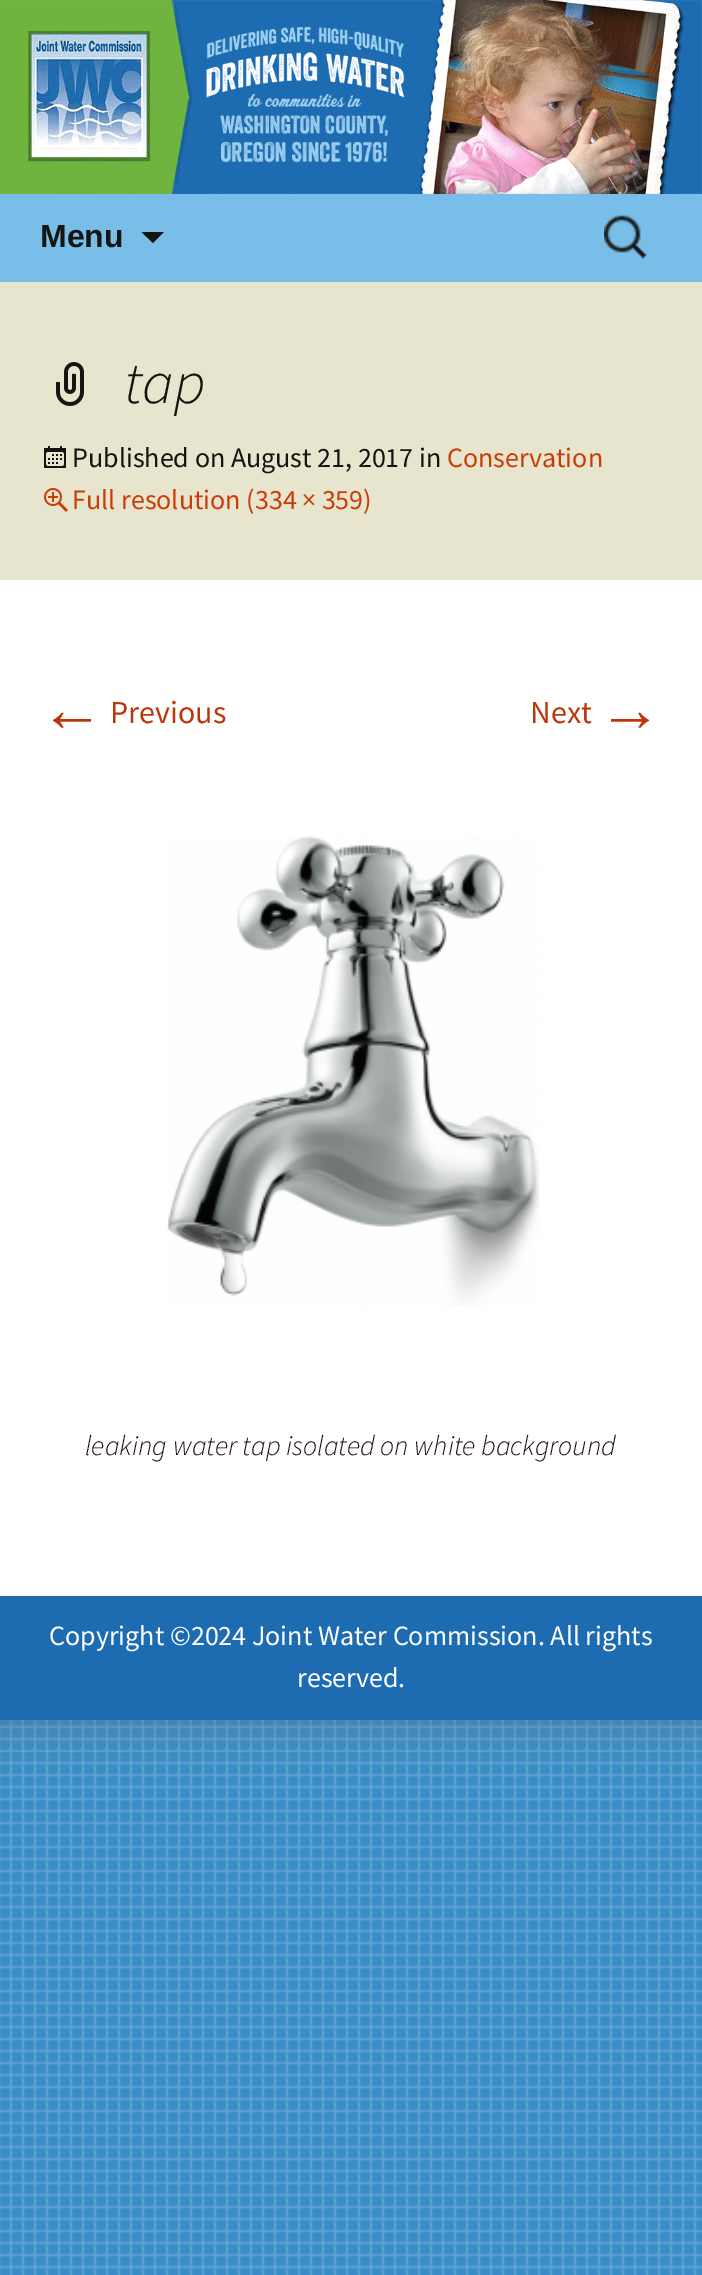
%!PS-Adobe-3.0
%%BoundingBox: 0 0 702 2275
%%LanguageLevel: 3
%%Pages: 1
%%EndComments
%%BeginProlog
/setink { 3 { 255 div 3 1 roll } repeat setrgbcolor } def
/usefont { [ exch dup neg 0 0 3 -1 roll 0 0 ] selectfont } def
/drawtext { setink usefont moveto show } def
/fillbox { setink rectfill } def
/setalpha { dup .setfillconstantalpha .setstrokeconstantalpha } def
/rrect { 5 dict begin { /r /h /w /y /x } { exch def } forall
  x r add y moveto x w add y 2 copy h add r arct x w add y h add x 1 index r arct
  x y h add x y r arct x y 2 copy exch w add exch r arct closepath end } def
/softshadow { 12 dict begin { /a /b /q /h /w /y /x } { exch def } forall gsave /was 0 def
  9 -2 -9 { dup b mul 4 div /e exch def 1 sub .425 mul 2.718 exch exp 1 add a .99 .min exch div /now exch def
    1 1 now sub 1 was sub div sub setalpha /was now def
    w h .min e 2 mul add 0 gt { x e sub y e sub w e 2 mul add h e 2 mul add
      q e add b .6 mul add w h .min 2 div e add .min 0 .max rrect fill } if } for grestore end } def
/drawimage { 5 dict begin { /h /w /y /x /name } { exch def } forall
  gsave x y translate w h scale
  w h 8 [w 0 0 h 0 0] name (r) file false 3 colorimage grestore end } def
%%EndProlog
%%BeginSetup
<< /PageSize [702 2275] /PageUsesTransparency true >> setpagedevice
%%EndSetup
%%Page: 1 1
0 .pushpdf14devicefilter
0 2275 translate 1 -1 scale
4 setmiterlimit
0 0 702 2275 255 255 255 fillbox
(assets/img1.rgb) 0 1720 702 555 drawimage
102 102 102 setink
-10 -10 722 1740 0 20 0.3 softshadow
(assets/img2.rgb) 0 0 702 194 drawimage
0 194 702 88 121 189 233 fillbox
(Menu) 40 247 /LiberationSans-Bold 32 20 20 18 drawtext
141.5 232 moveto 164 232 lineto 153 243 lineto closepath fill
(assets/img3.rgb) 604 215 43 44 drawimage
0 282 702 298 232 229 206 fillbox
(assets/img4.rgb) 56 362 28 44 drawimage
(tap) 124 403 /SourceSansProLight-LightItalic 60 20 20 18 drawtext
(assets/img5.rgb) 44 446 22 22 drawimage
(Published on August 21, 2017 in) 72 467 /SourceSansPro-Regular 28 20 20 18 drawtext
(Conservation) 447 467 /SourceSansPro-Regular 28 202 60 8 drawtext
(assets/img6.rgb) 44 488 24 24 drawimage
(Full resolution \(334 × 359\)) 72 509 /SourceSansPro-Regular 28 202 60 8 drawtext
0 580 702 1016 255 255 255 fillbox
(←) 40 731 /LiberationSans-Regular 64 188 54 10 drawtext
(Previous) 110 723 /SourceSansPro-Regular 32 188 54 10 drawtext
(Next) 530 723 /SourceSansPro-Regular 32 188 54 10 drawtext
(→) 598 731 /LiberationSans-Regular 64 188 54 10 drawtext
(assets/img7.rgb) 166 836 374 471 drawimage
(leaking water tap isolated on white background) 85 1455 /SourceSansProLight-LightItalic 28 34 14 16 drawtext
0 1596 702 124 29 108 177 fillbox
(Copyright ©2024 Joint Water Commission. All rights) 49 1645 /SourceSansPro-Regular 28 255 255 255 drawtext
(reserved.) 297 1687 /SourceSansPro-Regular 28 255 255 255 drawtext
.poppdf14devicefilter showpage
%%EOF
